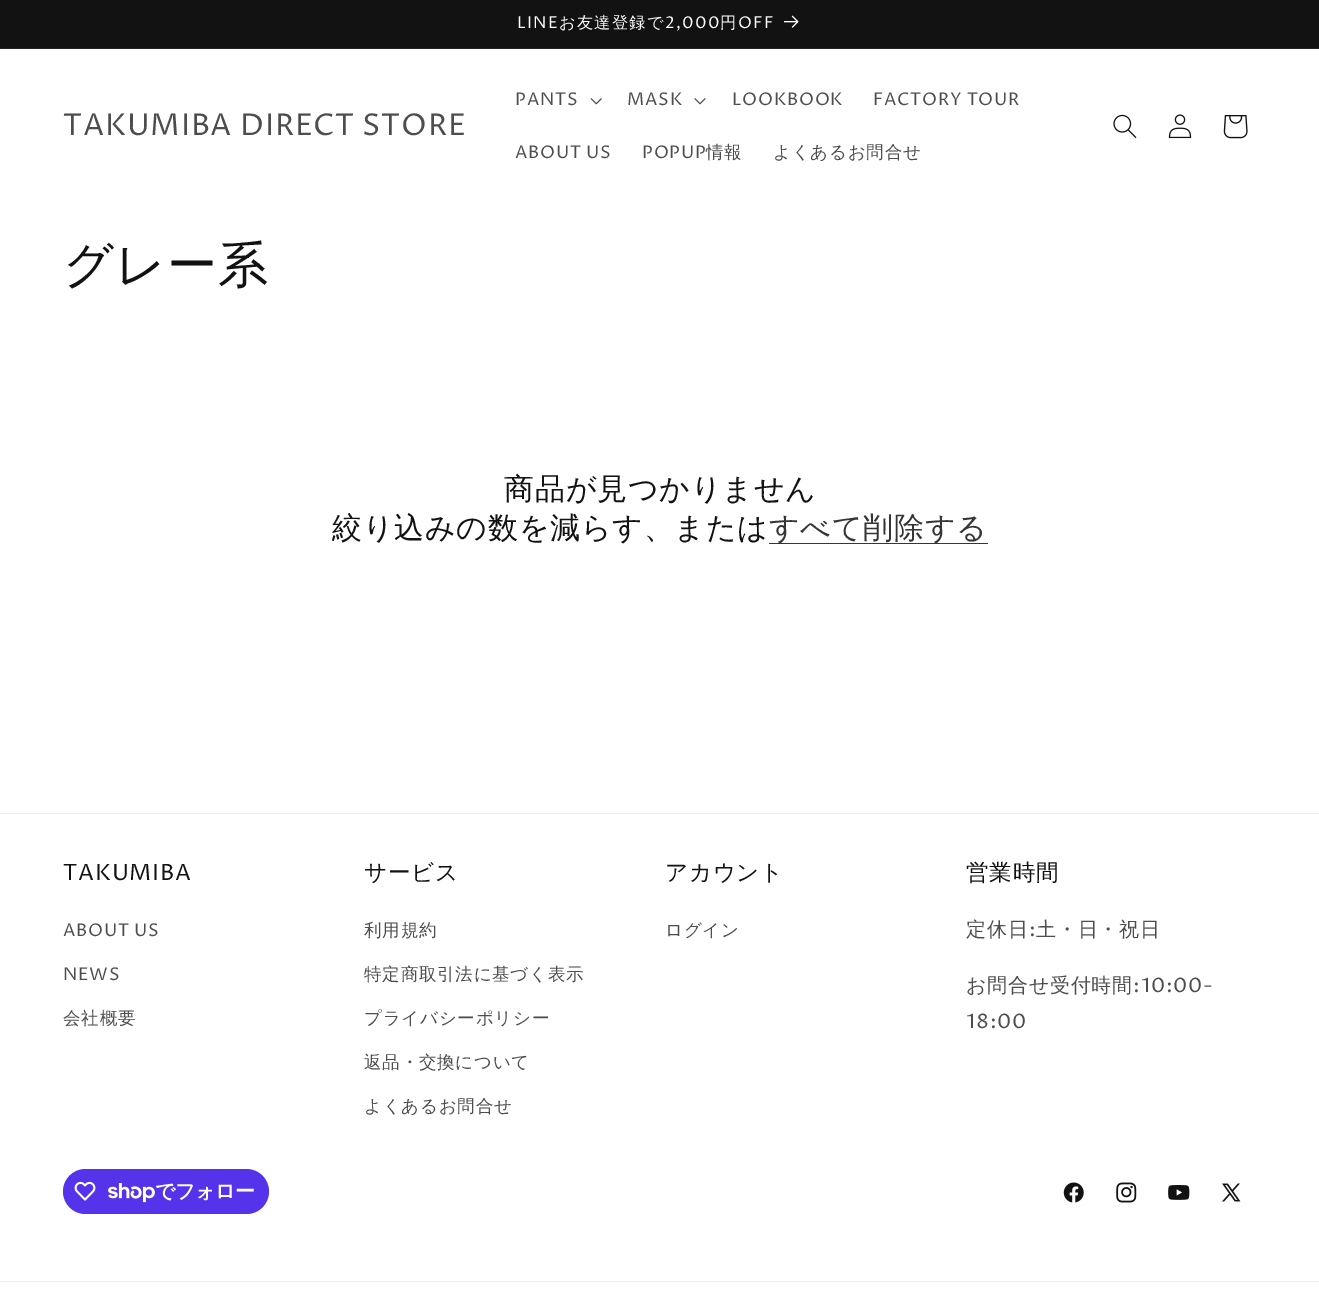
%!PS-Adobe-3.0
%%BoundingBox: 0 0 1319 1292
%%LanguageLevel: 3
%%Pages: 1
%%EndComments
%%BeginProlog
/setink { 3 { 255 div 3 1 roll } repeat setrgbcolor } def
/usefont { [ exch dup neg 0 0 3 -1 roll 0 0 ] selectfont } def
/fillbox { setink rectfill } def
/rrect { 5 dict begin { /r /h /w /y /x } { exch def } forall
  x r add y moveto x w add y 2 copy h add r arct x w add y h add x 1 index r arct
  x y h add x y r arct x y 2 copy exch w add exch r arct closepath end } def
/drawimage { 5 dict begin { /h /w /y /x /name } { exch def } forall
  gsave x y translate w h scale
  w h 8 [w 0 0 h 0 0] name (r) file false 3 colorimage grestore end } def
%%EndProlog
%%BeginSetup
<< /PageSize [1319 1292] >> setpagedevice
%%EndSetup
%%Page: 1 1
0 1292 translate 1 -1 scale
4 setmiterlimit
0 0 1319 1292 255 255 255 fillbox
0 0 1319 48 18 18 18 fillbox
0 48 1319 1 37 37 37 fillbox
/ProzaLibre-Regular 16.25 usefont
255 255 255 setink
517 28 moveto 1.25 0 (LINE) ashow
/WenQuanYiZenHei-Medium 16.25 usefont
559 28 moveto 1.25 0 (お友達登録で) ashow
/ProzaLibre-Regular 16.25 usefont
665 28 moveto 1.25 0 (2,000) ashow
/WenQuanYiZenHei-Medium 16.25 usefont
720 28 moveto 1.25 0 (円) ashow
/ProzaLibre-Regular 16.25 usefont
738 28 moveto 1.25 0 (OFF) ashow
(assets/img1.rgb) 784 15 15 13 drawimage
/ProzaLibre-Regular 30 usefont
77 77 77 setink
63 135 moveto 0.75 0 (TAKUMIBA DIRECT STORE) ashow
/ProzaLibre-Regular 17.5 usefont
515 105 moveto 0.75 0 (PANTS) ashow
(assets/img2.rgb) 590 98 12 7 drawimage
627 105 moveto 0.75 0 (MASK) ashow
(assets/img3.rgb) 694 98 12 7 drawimage
732 105 moveto 0.75 0 (LOOKBOOK) ashow
873 105 moveto 0.75 0 (FACTORY TOUR) ashow
515 158 moveto 0.75 0 (ABOUT US) ashow
642 158 moveto 0.75 0 (POPUP) ashow
/WenQuanYiZenHei-Medium 17.5 usefont
706 158 moveto 0.75 0 (情報) ashow
773 158 moveto 0.75 0 (よくあるお問合せ) ashow
(assets/img4.rgb) 1113 114 24 24 drawimage
(assets/img5.rgb) 1168 114 24 25 drawimage
(assets/img6.rgb) 1223 115 25 24 drawimage
/WenQuanYiZenHei-Medium 50 usefont
18 18 18 setink
63 282 moveto 0.75 0 (グレー系) ashow
/WenQuanYiZenHei-Medium 30 usefont
504 499 moveto 0.75 0 (商品が見つかりません) ashow
332 538 moveto 0.75 0 (絞り込みの数を減らす、または) ashow
769 543 219 1 54 54 54 fillbox
53 53 53 setink
769 538 moveto 0.75 0 (すべて削除する) ashow
0 813 1319 1 236 236 236 fillbox
/ProzaLibre-Regular 22.5 usefont
18 18 18 setink
63 880 moveto 0.75 0 (TAKUMIBA) ashow
/ProzaLibre-Regular 17.5 usefont
77 77 77 setink
63 936 moveto 0.75 0 (ABOUT US) ashow
63 980 moveto 0.75 0 (NEWS) ashow
/WenQuanYiZenHei-Medium 17.5 usefont
63 1024 moveto 0.75 0 (会社概要) ashow
/WenQuanYiZenHei-Medium 22.5 usefont
18 18 18 setink
364 880 moveto 0.75 0 (サービス) ashow
/WenQuanYiZenHei-Medium 17.5 usefont
77 77 77 setink
364 936 moveto 0.75 0 (利用規約) ashow
364 980 moveto 0.75 0 (特定商取引法に基づく表示) ashow
364 1024 moveto 0.75 0 (プライバシーポリシー) ashow
364 1068 moveto 0.75 0 (返品・交換について) ashow
364 1112 moveto 0.75 0 (よくあるお問合せ) ashow
/WenQuanYiZenHei-Medium 22.5 usefont
18 18 18 setink
665 880 moveto 0.75 0 (アカウント) ashow
/WenQuanYiZenHei-Medium 17.5 usefont
77 77 77 setink
665 936 moveto 0.75 0 (ログイン) ashow
/WenQuanYiZenHei-Medium 22.5 usefont
18 18 18 setink
966 880 moveto 0.75 0 (営業時間) ashow
/WenQuanYiZenHei-Medium 20 usefont
77 77 77 setink
966 936 moveto 0.75 0 (定休日) ashow
/ProzaLibre-Regular 20 usefont
1029 936 moveto 0.75 0 (:) ashow
/WenQuanYiZenHei-Medium 20 usefont
1036 936 moveto 0.75 0 (土・日・祝日) ashow
966 992 moveto 0.75 0 (お問合せ受付時間) ashow
/ProzaLibre-Regular 20 usefont
1133 992 moveto 0.75 0 (:10:00-) ashow
966 1028 moveto 0.75 0 (18:00) ashow
84 51 235 setink
63 1169 206 45 22.5 rrect fill
(assets/img7.rgb) 74 1181 22 20 drawimage
(assets/img8.rgb) 108 1183 47 20 drawimage
/WenQuanYiZenHei-Bold 20 usefont
255 255 255 setink
155 1198 moveto -0.5 0 (でフォロー) ashow
(assets/img9.rgb) 1063 1182 21 21 drawimage
(assets/img10.rgb) 1116 1182 21 21 drawimage
(assets/img11.rgb) 1168 1185 22 15 drawimage
(assets/img12.rgb) 1222 1183 19 19 drawimage
0 1281 1319 1 236 236 236 fillbox
showpage
%%EOF
